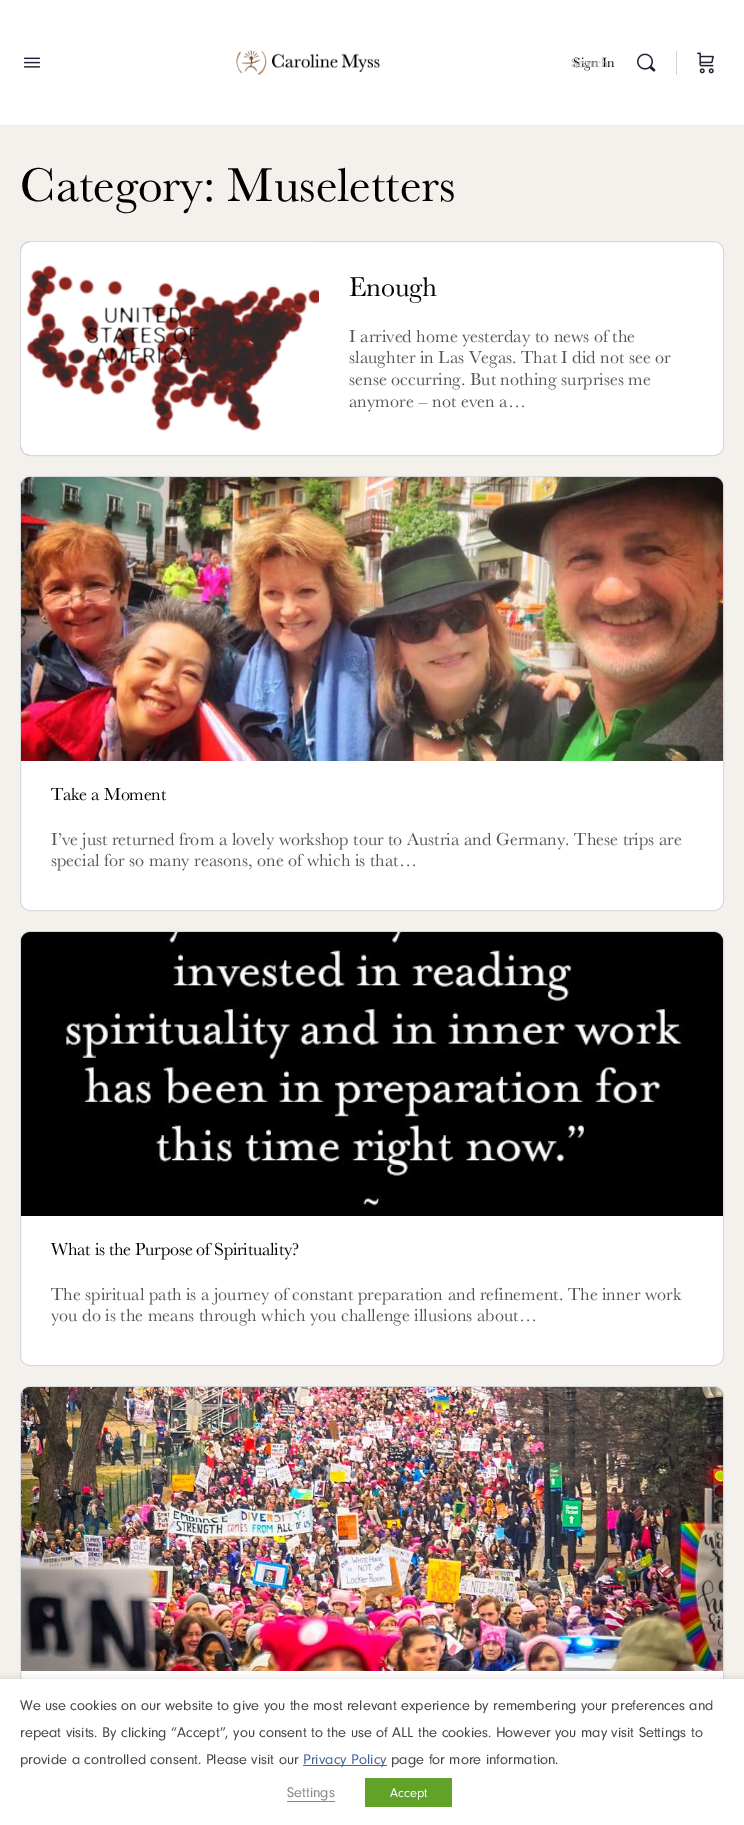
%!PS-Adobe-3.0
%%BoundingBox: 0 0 744 1825
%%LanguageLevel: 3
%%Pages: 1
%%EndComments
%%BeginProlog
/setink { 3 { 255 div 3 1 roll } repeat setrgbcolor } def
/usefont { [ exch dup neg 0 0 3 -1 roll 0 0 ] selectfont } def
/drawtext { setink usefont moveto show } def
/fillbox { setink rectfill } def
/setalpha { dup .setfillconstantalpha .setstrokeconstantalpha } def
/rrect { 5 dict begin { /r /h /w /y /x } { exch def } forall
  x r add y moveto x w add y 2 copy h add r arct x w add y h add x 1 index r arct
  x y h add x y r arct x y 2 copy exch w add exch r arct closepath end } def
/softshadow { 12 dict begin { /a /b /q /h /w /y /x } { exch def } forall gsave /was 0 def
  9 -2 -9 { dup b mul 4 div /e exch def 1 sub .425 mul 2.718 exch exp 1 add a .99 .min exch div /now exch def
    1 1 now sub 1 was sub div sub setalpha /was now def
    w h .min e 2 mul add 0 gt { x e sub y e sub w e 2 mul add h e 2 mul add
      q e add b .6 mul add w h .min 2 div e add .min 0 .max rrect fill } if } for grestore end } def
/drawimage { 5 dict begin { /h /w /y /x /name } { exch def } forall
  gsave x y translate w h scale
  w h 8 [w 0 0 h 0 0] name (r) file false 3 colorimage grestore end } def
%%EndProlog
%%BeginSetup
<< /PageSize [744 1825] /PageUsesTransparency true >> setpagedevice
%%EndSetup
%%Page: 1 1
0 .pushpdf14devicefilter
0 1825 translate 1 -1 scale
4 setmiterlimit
0 0 744 1825 244 241 237 fillbox
0 125 744 1 236 233 231 fillbox
0 0 744 125 255 255 255 fillbox
(assets/img1.rgb) 24 57 16 11 drawimage
(assets/img2.rgb) 236 49 144 26 drawimage
(Sign In) 573 67 /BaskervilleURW-Regular 14 0 0 0 drawtext
676 51 1 24 210 211 214 fillbox
(assets/img3.rgb) 697 52 17 22 drawimage
/BaskervilleURW-Medium 13 usefont
186 186 186 setink
571 67 moveto -0.25 0 (Search) ashow
(assets/img4.rgb) 637 53 19 19 drawimage
(Category: Museletters) 20 201 /BaskervilleURW-Regular 49 0 0 0 drawtext
255 255 255 setink
20.5 241.5 703 214 9.5 rrect gsave fill grestore
214 217 221 setink
stroke
100 115 133 setink
30 242 moveto 319 242 lineto 319 455 lineto 30 455 lineto 25 455 21 451 21 446 curveto 21 251 lineto 21 246 25 242 30 242 curveto closepath fill
(assets/img5.rgb) 21 242 298 213 drawimage
/BaskervilleURW-Regular 28 usefont
0 0 0 setink
349 296 moveto -0.25 0 (Enough) ashow
(I arrived home yesterday to news of the) 349 342 /BaskervilleURW-Regular 18 85 85 85 drawtext
(slaughter in Las Vegas. That I did not see or) 349 363 /BaskervilleURW-Regular 18 85 85 85 drawtext
(sense occurring. But nothing surprises me) 349 385 /BaskervilleURW-Regular 18 85 85 85 drawtext
(anymore – not even a…) 349 407 /BaskervilleURW-Regular 18 85 85 85 drawtext
255 255 255 setink
20.5 476.5 703 434 9.5 rrect gsave fill grestore
214 217 221 setink
stroke
100 115 133 setink
30 477 moveto 714 477 lineto 719 477 723 481 723 486 curveto 723 761 lineto 21 761 lineto 21 486 lineto 21 481 25 477 30 477 curveto closepath fill
(assets/img6.rgb) 21 477 702 284 drawimage
0 0 0 setink
51 800 moveto -0.25 0 (Take a Moment) ashow
(I’ve just returned from a lovely workshop tour to Austria and Germany. These trips are) 51 845 /BaskervilleURW-Regular 18 85 85 85 drawtext
(special for so many reasons, one of which is that…) 51 866 /BaskervilleURW-Regular 18 85 85 85 drawtext
255 255 255 setink
20.5 931.5 703 434 9.5 rrect gsave fill grestore
214 217 221 setink
stroke
100 115 133 setink
30 932 moveto 714 932 lineto 719 932 723 936 723 941 curveto 723 1216 lineto 21 1216 lineto 21 941 lineto 21 936 25 932 30 932 curveto closepath fill
(assets/img7.rgb) 21 932 702 284 drawimage
0 0 0 setink
51 1255 moveto -0.25 0 (What is the Purpose of Spirituality?) ashow
(The spiritual path is a journey of constant preparation and refinement. The inner work) 51 1300 /BaskervilleURW-Regular 18 85 85 85 drawtext
(you do is the means through which you challenge illusions about…) 51 1321 /BaskervilleURW-Regular 18 85 85 85 drawtext
255 255 255 setink
20.5 1386.5 703 434 9.5 rrect gsave fill grestore
214 217 221 setink
stroke
100 115 133 setink
30 1387 moveto 714 1387 lineto 719 1387 723 1391 723 1396 curveto 723 1671 lineto 21 1671 lineto 21 1396 lineto 21 1391 25 1387 30 1387 curveto closepath fill
(assets/img8.rgb) 21 1387 702 284 drawimage
0 0 0 setink
0 1684 744 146 0 5 0.5 softshadow
0 1679 744 146 255 255 255 fillbox
(We use cookies on our website to give you the most relevant experience by remembering your preferences and) 20 1710 /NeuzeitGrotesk-Regular 14.65 68 68 68 drawtext
(repeat visits. By clicking “Accept”, you consent to the use of ALL the cookies. However you may visit Settings to) 20 1737 /NeuzeitGrotesk-Regular 14.65 68 68 68 drawtext
(provide a controlled consent. Please visit our) 20 1764 /NeuzeitGrotesk-Regular 14.65 68 68 68 drawtext
303 1765 84 1 68 102 153 fillbox
(Privacy Policy) 303 1764 /NeuzeitGrotesk-Regular 14.65 68 102 153 drawtext
(page for more information.) 391 1764 /NeuzeitGrotesk-Regular 14.65 68 68 68 drawtext
(Settings) 287 1797 /NeuzeitGrotesk-Regular 14.65 137 136 136 drawtext
287 1801 48 1 137 136 136 fillbox
365 1778 87 29 97 162 41 fillbox
(Accept) 390 1797 /NeuzeitGrotesk-Regular 13 255 255 255 drawtext
.poppdf14devicefilter showpage
%%EOF
